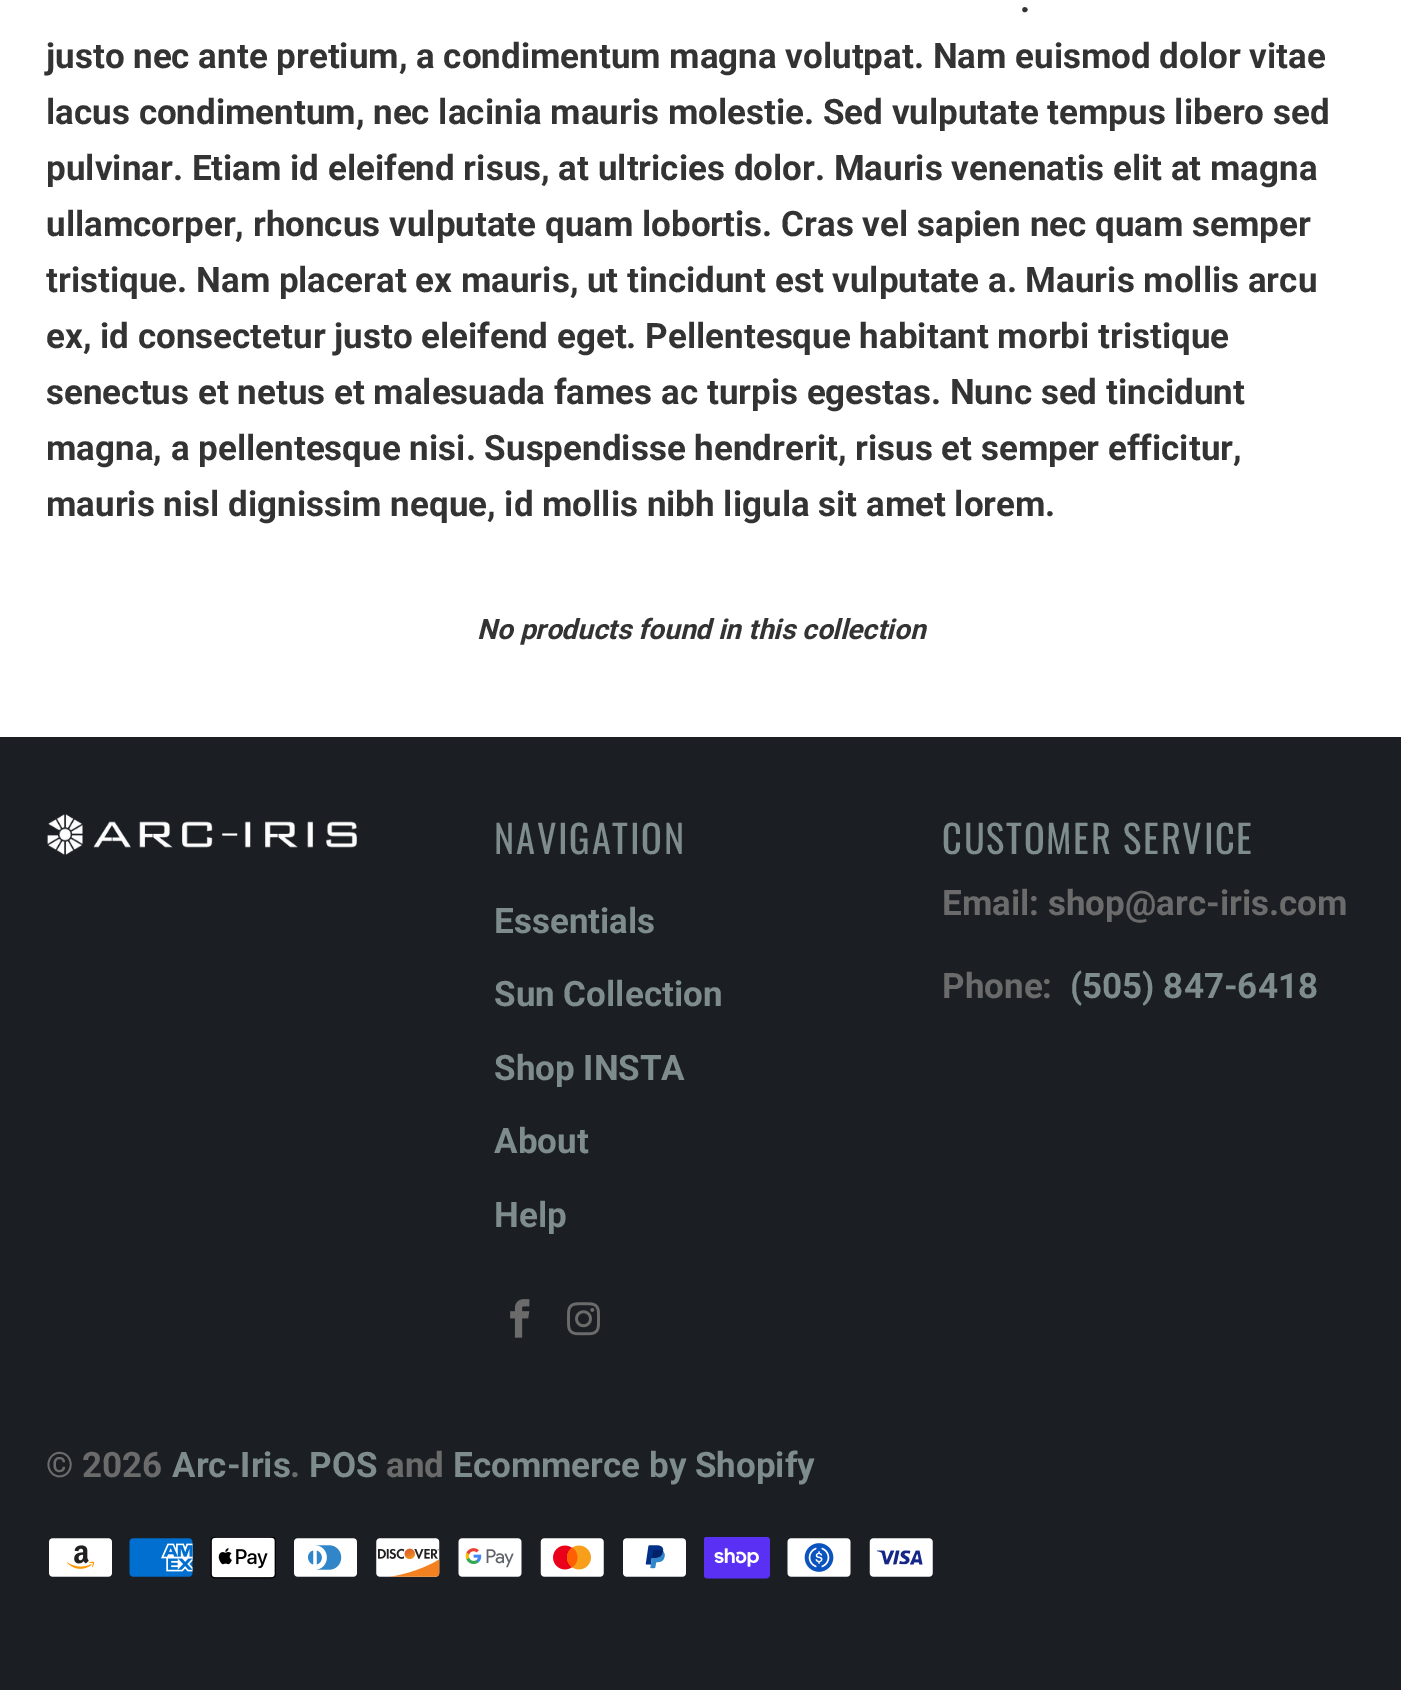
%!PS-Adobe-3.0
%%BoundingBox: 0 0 1401 1690
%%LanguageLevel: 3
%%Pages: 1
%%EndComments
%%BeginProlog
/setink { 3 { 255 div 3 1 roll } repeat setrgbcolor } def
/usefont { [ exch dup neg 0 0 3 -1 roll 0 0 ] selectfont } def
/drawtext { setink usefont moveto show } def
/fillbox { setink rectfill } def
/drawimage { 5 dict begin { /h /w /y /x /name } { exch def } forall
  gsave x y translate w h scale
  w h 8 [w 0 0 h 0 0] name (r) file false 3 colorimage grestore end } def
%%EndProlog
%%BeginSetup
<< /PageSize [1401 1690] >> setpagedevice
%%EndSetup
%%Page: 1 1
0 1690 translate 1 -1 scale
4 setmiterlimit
0 0 1401 1690 255 255 255 fillbox
(.) 1020 12 /Roboto-Bold 35 51 51 51 drawtext
(justo nec ante pretium, a condimentum magna volutpat. Nam euismod dolor vitae) 46 68 /Roboto-Bold 35 51 51 51 drawtext
(lacus condimentum, nec lacinia mauris molestie. Sed vulputate tempus libero sed) 46 124 /Roboto-Bold 35 51 51 51 drawtext
(pulvinar. Etiam id eleifend risus, at ultricies dolor. Mauris venenatis elit at magna) 46 180 /Roboto-Bold 35 51 51 51 drawtext
(ullamcorper, rhoncus vulputate quam lobortis. Cras vel sapien nec quam semper) 46 236 /Roboto-Bold 35 51 51 51 drawtext
(tristique. Nam placerat ex mauris, ut tincidunt est vulputate a. Mauris mollis arcu) 46 292 /Roboto-Bold 35 51 51 51 drawtext
(ex, id consectetur justo eleifend eget. Pellentesque habitant morbi tristique) 46 348 /Roboto-Bold 35 51 51 51 drawtext
(senectus et netus et malesuada fames ac turpis egestas. Nunc sed tincidunt) 46 404 /Roboto-Bold 35 51 51 51 drawtext
(magna, a pellentesque nisi. Suspendisse hendrerit, risus et semper efficitur,) 46 460 /Roboto-Bold 35 51 51 51 drawtext
(mauris nisl dignissim neque, id mollis nibh ligula sit amet lorem.) 46 516 /Roboto-Bold 35 51 51 51 drawtext
(No products found in this collection) 477 639 /Roboto-BoldItalic 28 51 51 51 drawtext
0 737 1401 953 27 31 35 fillbox
(assets/img1.rgb) 47 814 310 41 drawimage
/Oswald-Regular 38.5 usefont
127 140 141 setink
494 854 moveto 1.75 0 (NAVIGATION) ashow
(Essentials) 494 933 /Roboto-Bold 35 127 140 141 drawtext
(Sun Collection) 494 1006 /Roboto-Bold 35 127 140 141 drawtext
(Shop INSTA) 494 1080 /Roboto-Bold 35 127 140 141 drawtext
(About) 494 1153 /Roboto-Bold 35 127 140 141 drawtext
(Help) 494 1227 /Roboto-Bold 35 127 140 141 drawtext
(assets/img2.rgb) 510 1299 20 39 drawimage
(assets/img3.rgb) 567 1302 33 34 drawimage
/Oswald-Regular 38.5 usefont
942 854 moveto 1.75 0 (CUSTOMER SERVICE) ashow
(Email: shop@arc-iris.com) 942 915 /Roboto-Bold 35 107 107 107 drawtext
(Phone:) 942 998 /Roboto-Bold 35 107 107 107 drawtext
(\(505\) 847-6418) 1070 998 /Roboto-Bold 35 127 140 141 drawtext
(© 2026) 46 1477 /Roboto-Bold 35 107 107 107 drawtext
(Arc-Iris) 172 1477 /Roboto-Bold 35 127 140 141 drawtext
(.) 290 1477 /Roboto-Bold 35 107 107 107 drawtext
(POS) 309 1477 /Roboto-Bold 35 127 140 141 drawtext
(and) 386 1477 /Roboto-Bold 35 107 107 107 drawtext
(Ecommerce by Shopify) 453 1477 /Roboto-Bold 35 127 140 141 drawtext
(assets/img4.rgb) 49 1538 63 39 drawimage
(assets/img5.rgb) 129 1538 64 39 drawimage
(assets/img6.rgb) 210 1537 66 42 drawimage
(assets/img7.rgb) 294 1538 63 39 drawimage
(assets/img8.rgb) 376 1538 64 39 drawimage
(assets/img9.rgb) 458 1538 64 39 drawimage
(assets/img10.rgb) 540 1538 64 39 drawimage
(assets/img11.rgb) 623 1538 63 39 drawimage
(assets/img12.rgb) 704 1537 66 42 drawimage
(assets/img13.rgb) 787 1538 64 39 drawimage
(assets/img14.rgb) 869 1538 64 39 drawimage
showpage
%%EOF
